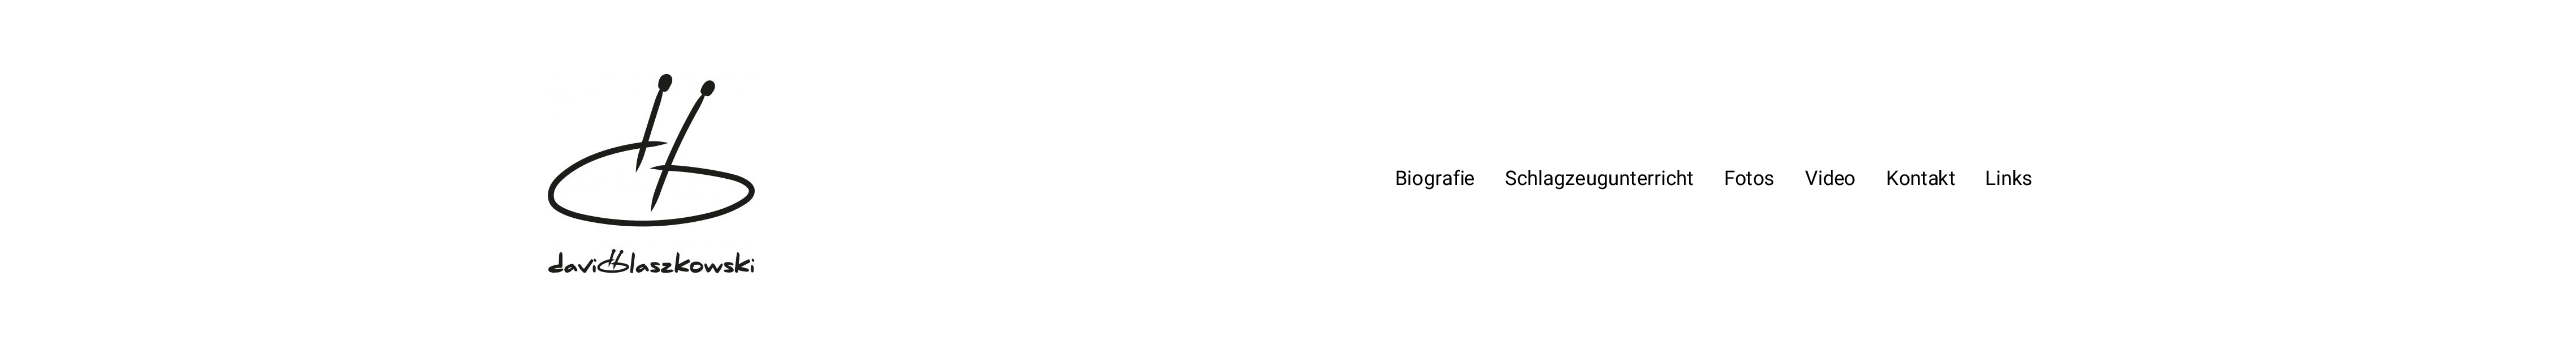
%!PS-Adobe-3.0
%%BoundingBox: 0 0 2563 346
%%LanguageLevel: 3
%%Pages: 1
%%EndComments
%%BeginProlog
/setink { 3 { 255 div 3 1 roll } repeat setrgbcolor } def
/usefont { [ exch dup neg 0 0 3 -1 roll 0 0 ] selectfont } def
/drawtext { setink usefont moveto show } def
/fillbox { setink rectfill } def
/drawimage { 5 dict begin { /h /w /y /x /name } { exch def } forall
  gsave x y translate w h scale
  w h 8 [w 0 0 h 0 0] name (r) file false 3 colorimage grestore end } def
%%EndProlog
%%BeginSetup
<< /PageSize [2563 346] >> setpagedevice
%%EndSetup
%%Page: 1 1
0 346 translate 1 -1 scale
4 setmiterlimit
0 0 2563 346 255 255 255 fillbox
(assets/img1.rgb) 546 73 209 204 drawimage
(Biografie) 1395 185 /Roboto-Regular 20 0 0 0 drawtext
(Schlagzeugunterricht) 1505 185 /Roboto-Regular 20 0 0 0 drawtext
(Fotos) 1724 185 /Roboto-Regular 20 0 0 0 drawtext
(Video) 1805 185 /Roboto-Regular 20 0 0 0 drawtext
(Kontakt) 1886 185 /Roboto-Regular 20 0 0 0 drawtext
(Links) 1985 185 /Roboto-Regular 20 0 0 0 drawtext
showpage
%%EOF
